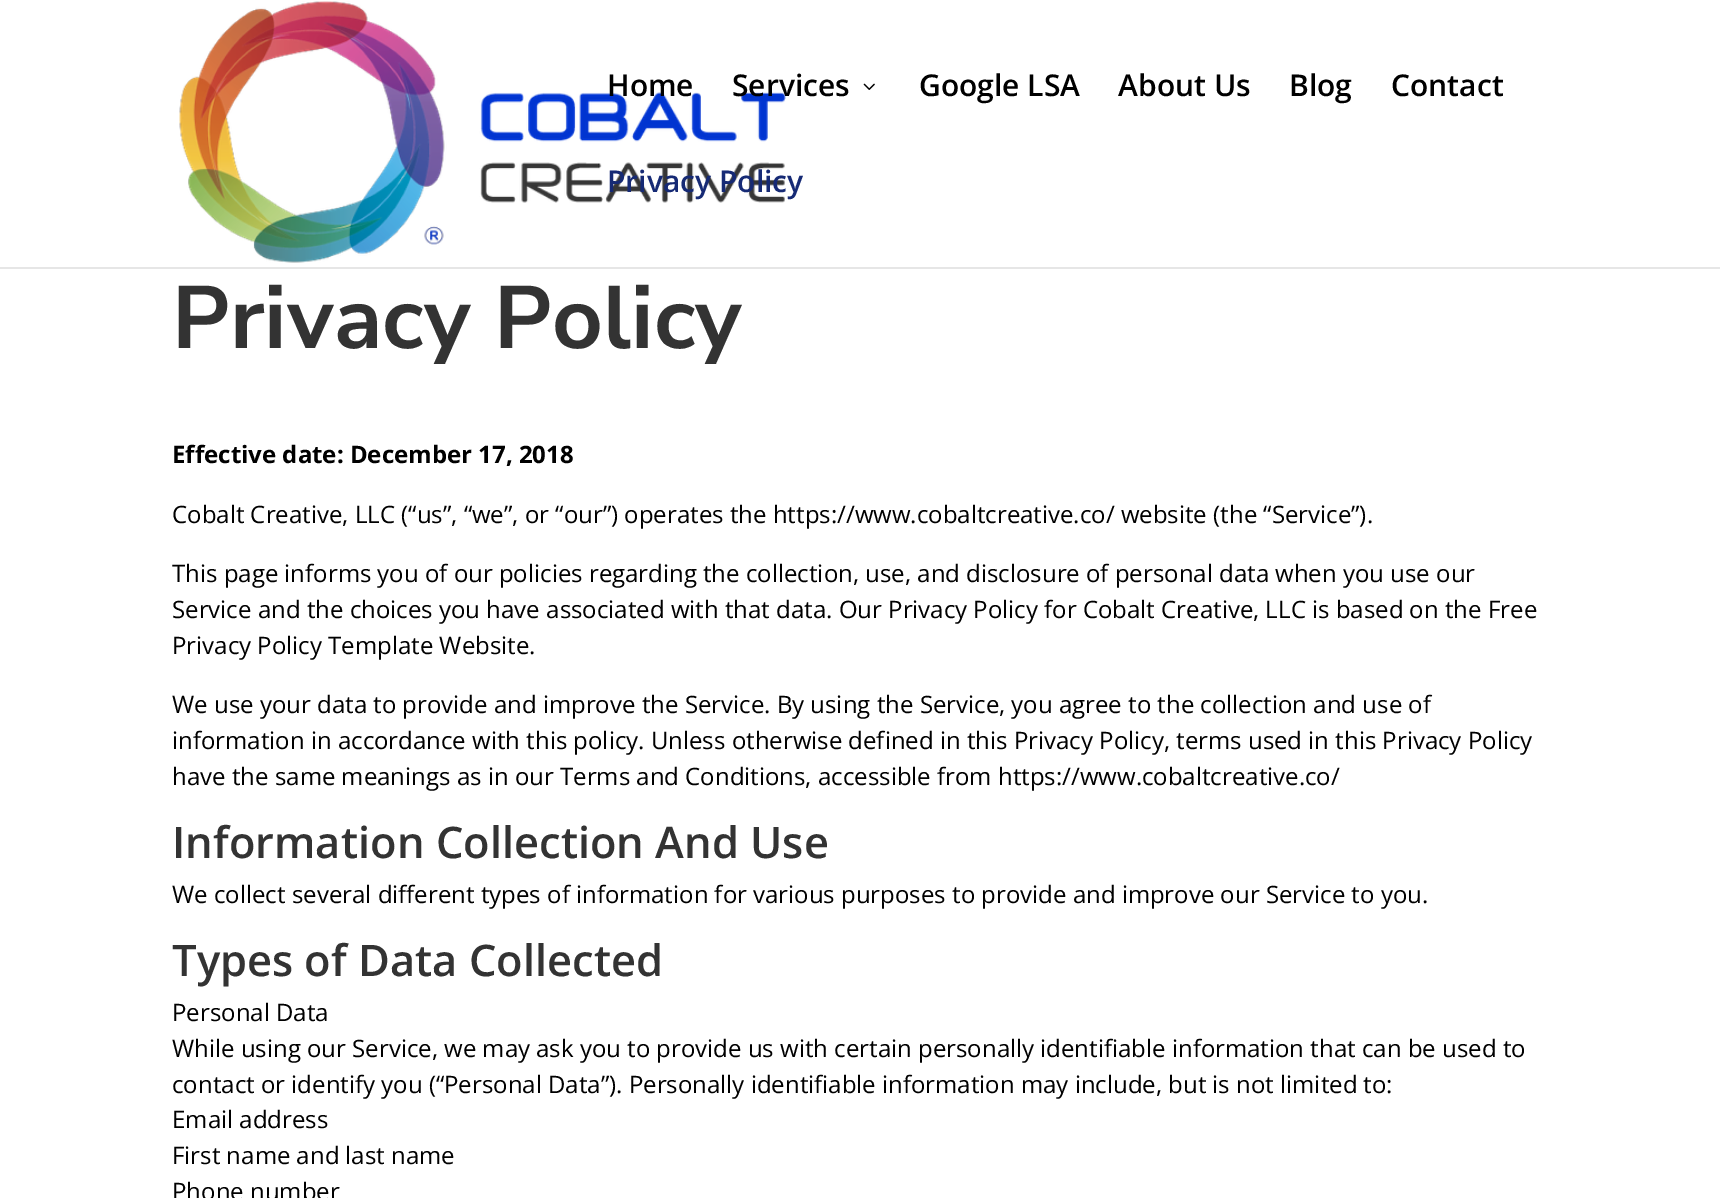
%!PS-Adobe-3.0
%%BoundingBox: 0 0 1720 1198
%%LanguageLevel: 3
%%Pages: 1
%%EndComments
%%BeginProlog
/setink { 3 { 255 div 3 1 roll } repeat setrgbcolor } def
/usefont { [ exch dup neg 0 0 3 -1 roll 0 0 ] selectfont } def
/drawtext { setink usefont moveto show } def
/fillbox { setink rectfill } def
/drawimage { 5 dict begin { /h /w /y /x /name } { exch def } forall
  gsave x y translate w h scale
  w h 8 [w 0 0 h 0 0] name (r) file false 3 colorimage grestore end } def
%%EndProlog
%%BeginSetup
<< /PageSize [1720 1198] >> setpagedevice
%%EndSetup
%%Page: 1 1
0 1198 translate 1 -1 scale
4 setmiterlimit
0 0 1720 1198 255 255 255 fillbox
230 230 230 setink
0 267 moveto 0 269 lineto 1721 269 lineto 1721 2 lineto 1720 2 lineto 1720 267 lineto closepath fill
(assets/img1.rgb) 179 1 607 262 drawimage
(Home) 607 96 /OpenSans-SemiBold 30 0 0 0 drawtext
(Services) 732 96 /OpenSans-SemiBold 30 0 0 0 drawtext
(assets/img2.rgb) 863 83 12 7 drawimage
(Google LSA) 919 96 /OpenSans-SemiBold 30 0 0 0 drawtext
(About Us) 1118 96 /OpenSans-SemiBold 30 0 0 0 drawtext
(Blog) 1289 96 /OpenSans-SemiBold 30 0 0 0 drawtext
(Contact) 1391 96 /OpenSans-SemiBold 30 0 0 0 drawtext
(Privacy Policy) 607 192 /OpenSans-SemiBold 30 22 42 117 drawtext
(Privacy Policy) 172 348 /NunitoSans-ExtraLight 88.5 51 51 51 drawtext
(Effective date: December 17, 2018) 172 463 /OpenSans-Bold 24 0 0 0 drawtext
(Cobalt Creative, LLC \(“us”, “we”, or “our”\) operates the https://www.cobaltcreative.co/ website \(the “Service”\).) 172 523 /OpenSans-Regular 24 0 0 0 drawtext
(This page informs you of our policies regarding the collection, use, and disclosure of personal data when you use our) 172 582 /OpenSans-Regular 24 0 0 0 drawtext
(Service and the choices you have associated with that data. Our Privacy Policy for Cobalt Creative, LLC is based on the Free) 172 618 /OpenSans-Regular 24 0 0 0 drawtext
(Privacy Policy Template Website.) 172 654 /OpenSans-Regular 24 0 0 0 drawtext
(We use your data to provide and improve the Service. By using the Service, you agree to the collection and use of) 172 713 /OpenSans-Regular 24 0 0 0 drawtext
(information in accordance with this policy. Unless otherwise defined in this Privacy Policy, terms used in this Privacy Policy) 172 749 /OpenSans-Regular 24 0 0 0 drawtext
(have the same meanings as in our Terms and Conditions, accessible from https://www.cobaltcreative.co/) 172 785 /OpenSans-Regular 24 0 0 0 drawtext
(Information Collection And Use) 172 858 /OpenSans-SemiBold 43.5 51 51 51 drawtext
(We collect several different types of information for various purposes to provide and improve our Service to you.) 172 903 /OpenSans-Regular 24 0 0 0 drawtext
(Types of Data Collected) 172 976 /OpenSans-SemiBold 43.5 51 51 51 drawtext
(Personal Data) 172 1021 /OpenSans-Regular 24 0 0 0 drawtext
(While using our Service, we may ask you to provide us with certain personally identifiable information that can be used to) 172 1057 /OpenSans-Regular 24 0 0 0 drawtext
(contact or identify you \(“Personal Data”\). Personally identifiable information may include, but is not limited to:) 172 1093 /OpenSans-Regular 24 0 0 0 drawtext
(Email address) 172 1128 /OpenSans-Regular 24 0 0 0 drawtext
(First name and last name) 172 1164 /OpenSans-Regular 24 0 0 0 drawtext
(Phone number) 172 1200 /OpenSans-Regular 24 0 0 0 drawtext
showpage
%%EOF
